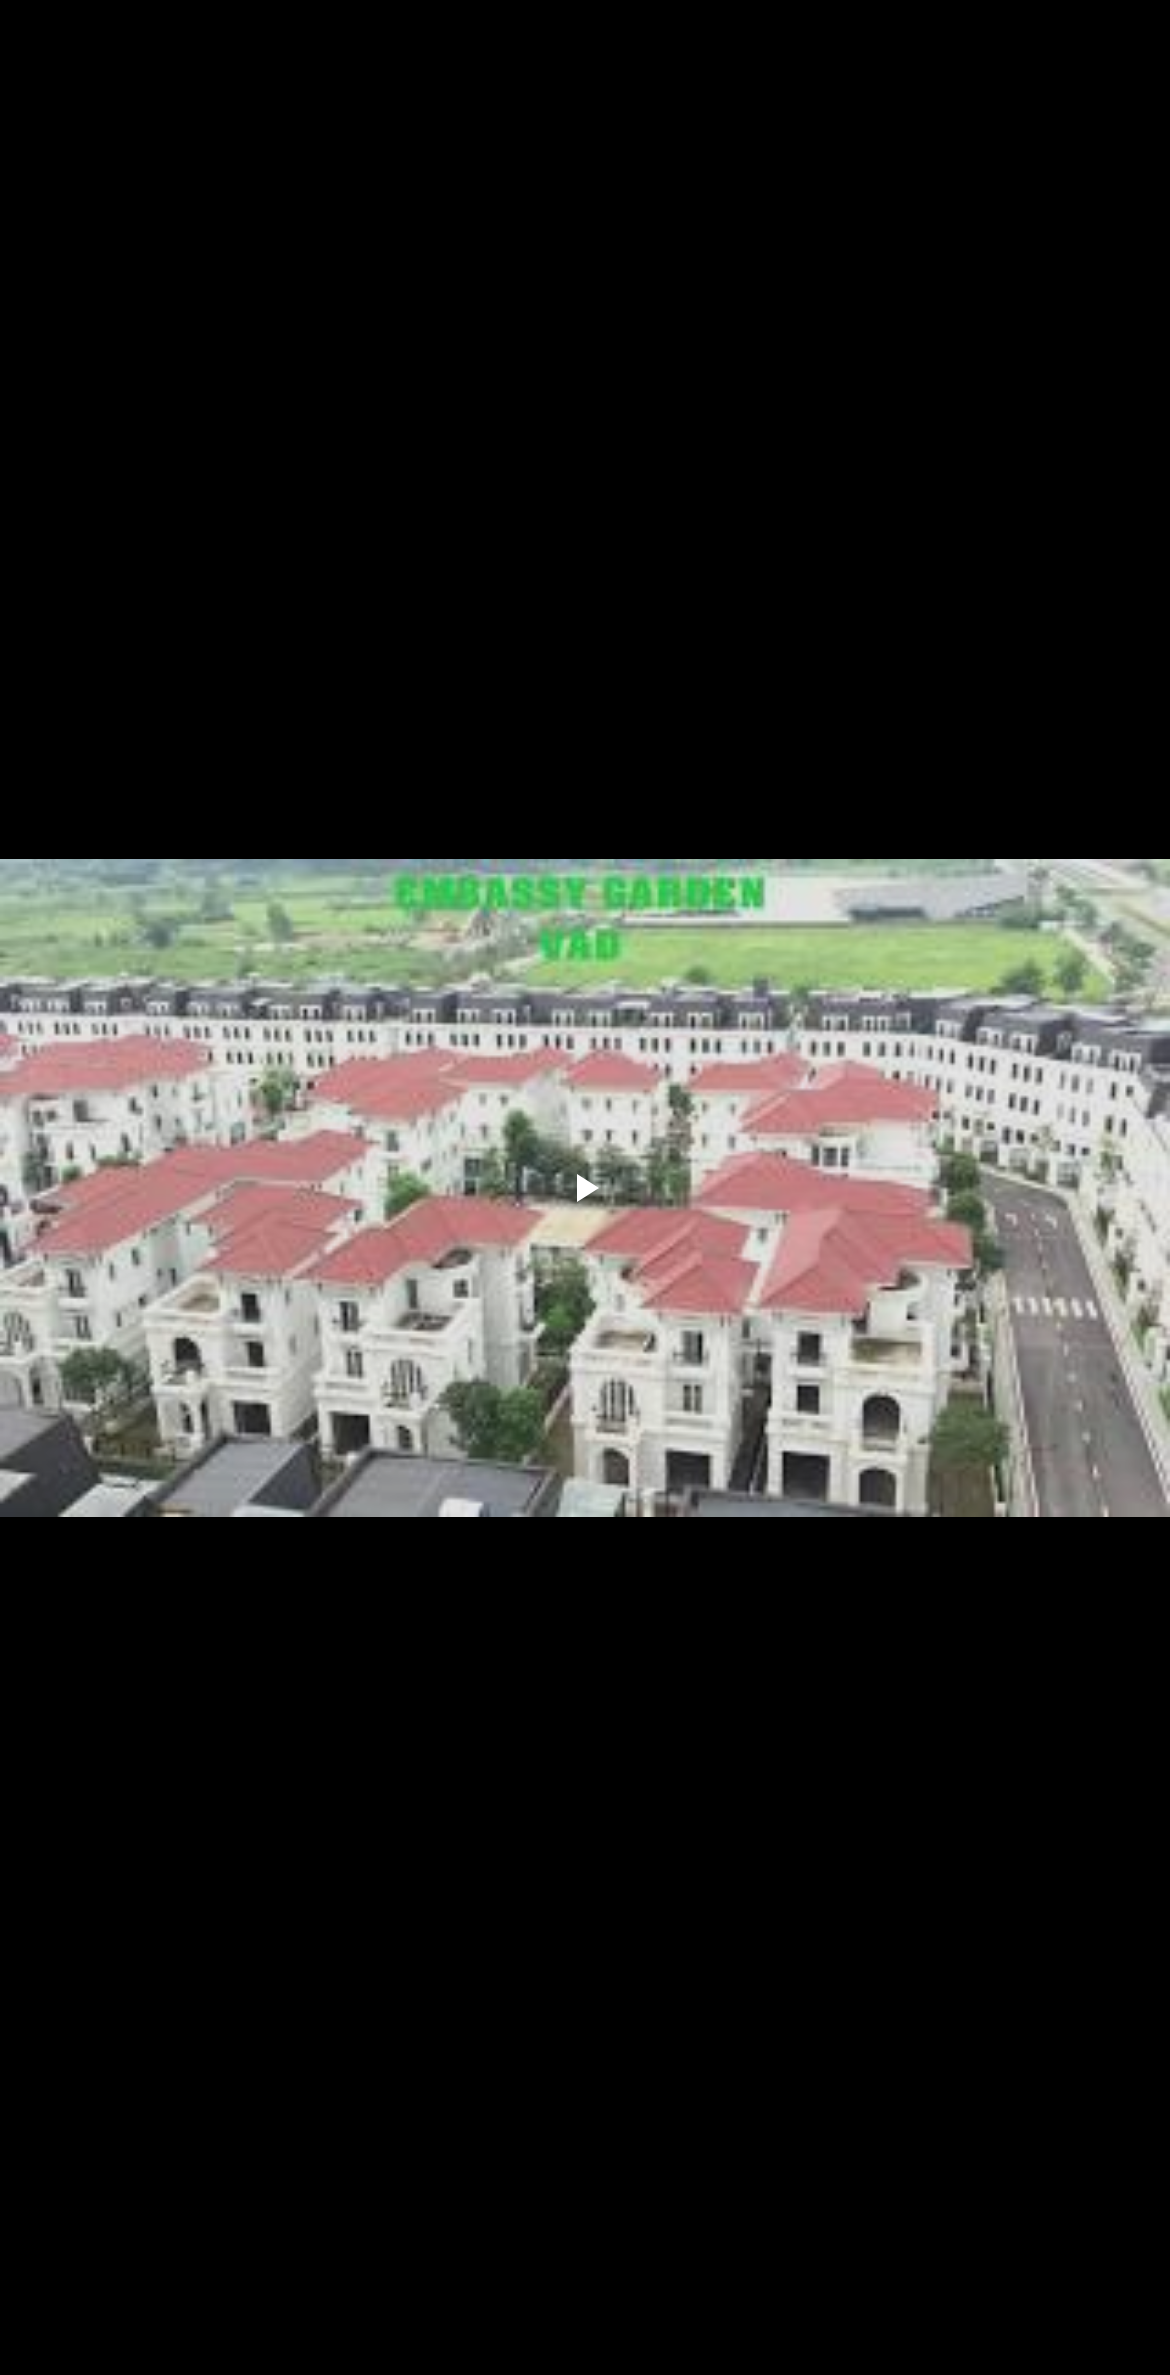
%!PS-Adobe-3.0
%%BoundingBox: 0 0 1170 2375
%%LanguageLevel: 3
%%Pages: 1
%%EndComments
%%BeginProlog
/setink { 3 { 255 div 3 1 roll } repeat setrgbcolor } def
/fillbox { setink rectfill } def
/drawimage { 5 dict begin { /h /w /y /x /name } { exch def } forall
  gsave x y translate w h scale
  w h 8 [w 0 0 h 0 0] name (r) file false 3 colorimage grestore end } def
%%EndProlog
%%BeginSetup
<< /PageSize [1170 2375] >> setpagedevice
%%EndSetup
%%Page: 1 1
0 2375 translate 1 -1 scale
4 setmiterlimit
0 0 1170 2375 0 0 0 fillbox
(assets/img1.rgb) 0 859 1170 658 drawimage
(assets/img2.rgb) 577 1174 22 28 drawimage
showpage
%%EOF
